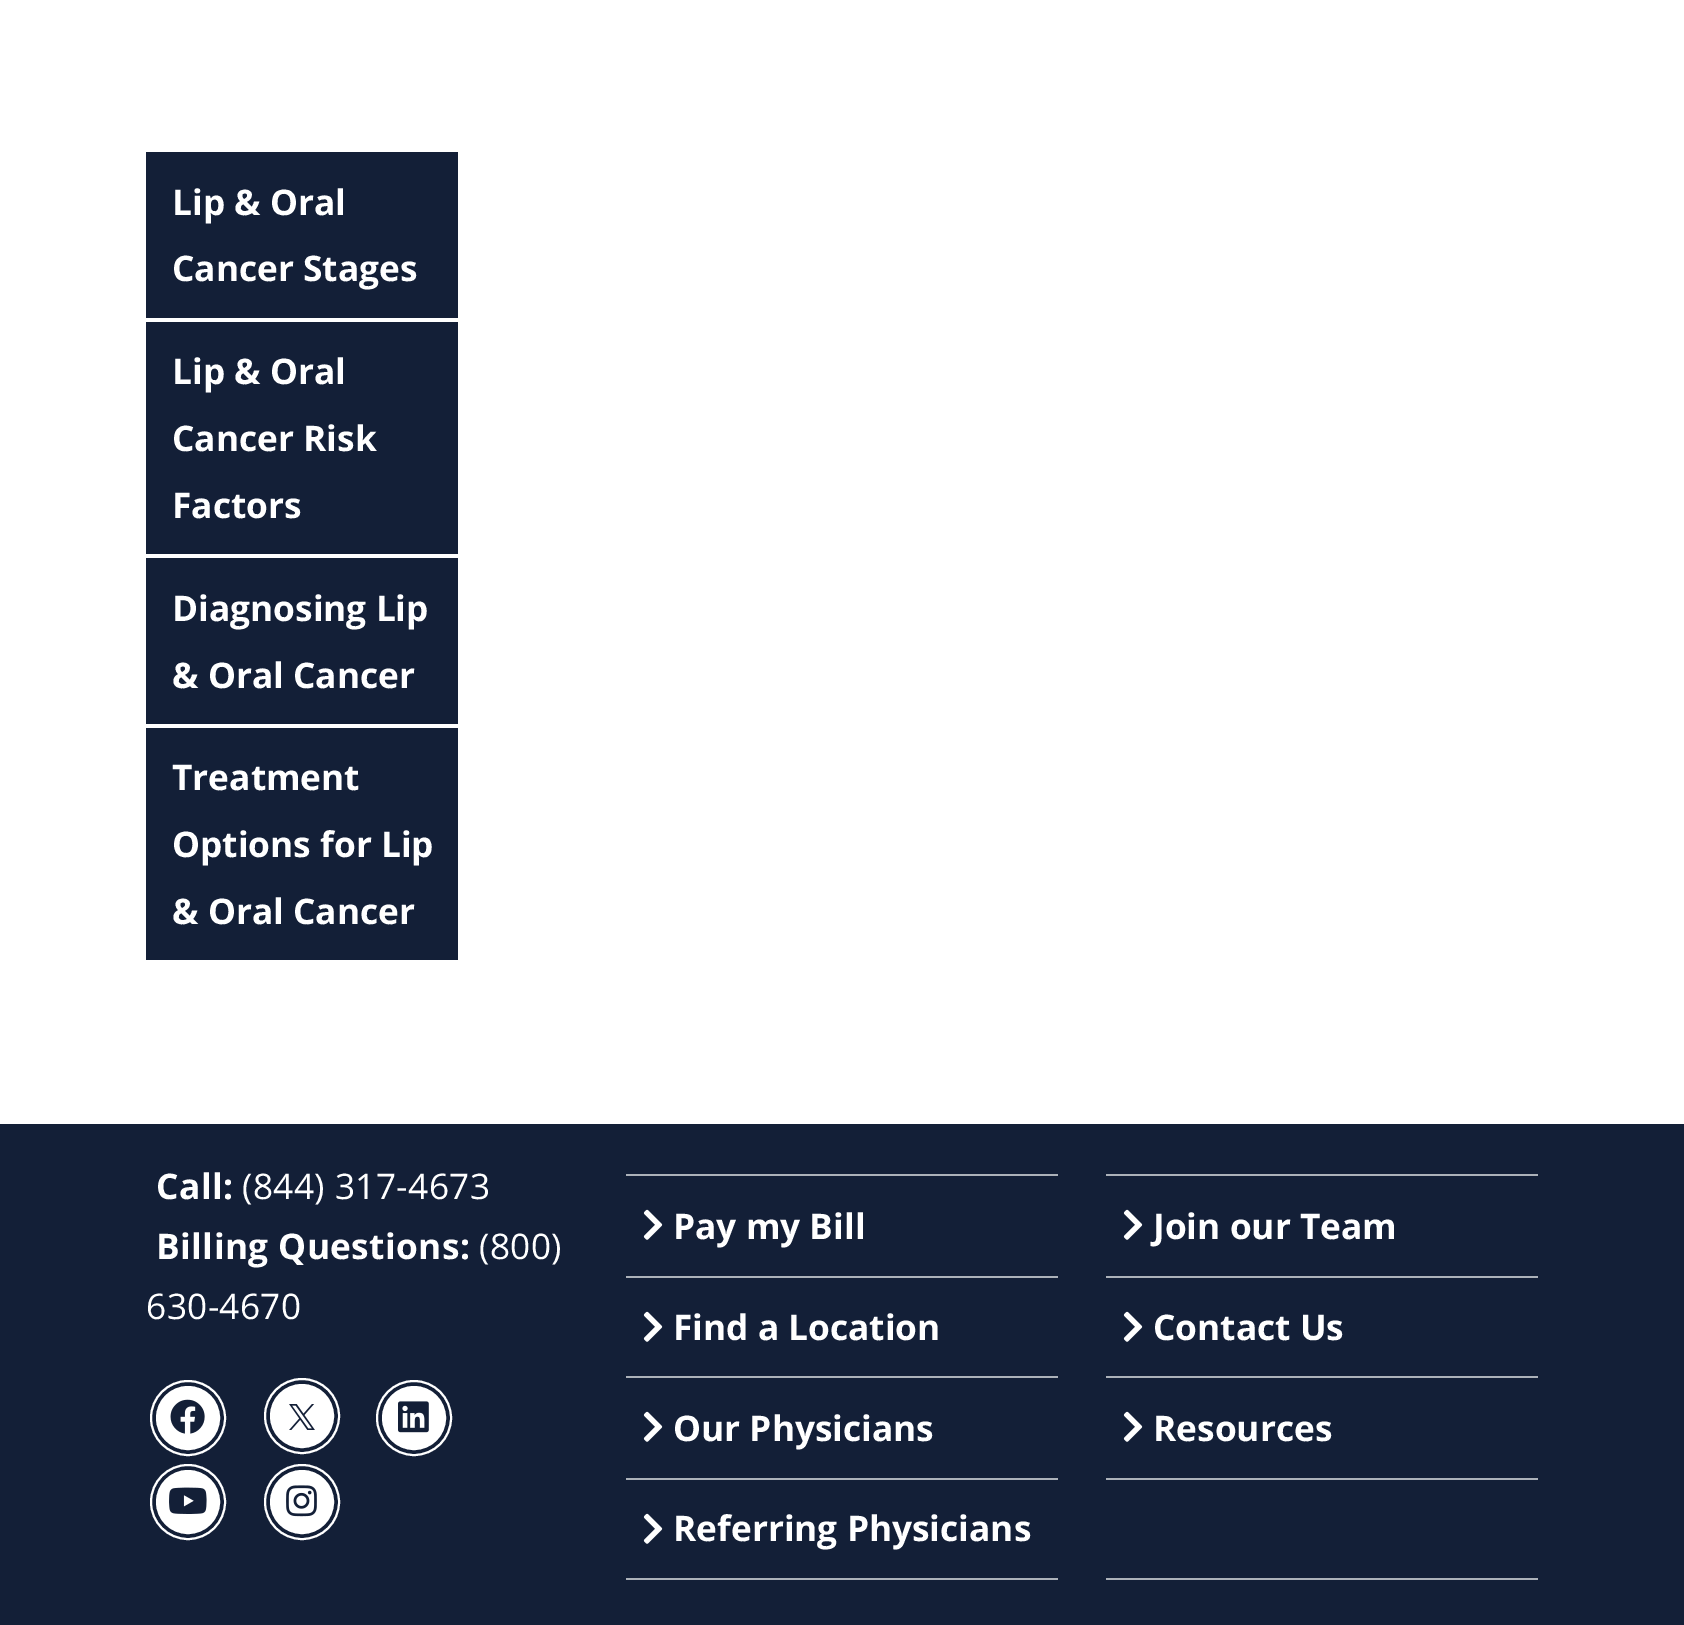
%!PS-Adobe-3.0
%%BoundingBox: 0 0 1684 1625
%%LanguageLevel: 3
%%Pages: 1
%%EndComments
%%BeginProlog
/setink { 3 { 255 div 3 1 roll } repeat setrgbcolor } def
/usefont { [ exch dup neg 0 0 3 -1 roll 0 0 ] selectfont } def
/drawtext { setink usefont moveto show } def
/fillbox { setink rectfill } def
/disc { newpath 0 360 arc closepath } def
/drawimage { 5 dict begin { /h /w /y /x /name } { exch def } forall
  gsave x y translate w h scale
  w h 8 [w 0 0 h 0 0] name (r) file false 3 colorimage grestore end } def
%%EndProlog
%%BeginSetup
<< /PageSize [1684 1625] >> setpagedevice
%%EndSetup
%%Page: 1 1
0 1625 translate 1 -1 scale
4 setmiterlimit
0 0 1684 1625 255 255 255 fillbox
146 152 312 166 19 31 55 fillbox
(Lip & Oral) 172 215 /OpenSans-Bold 35.25 255 255 255 drawtext
(Cancer Stages) 172 281 /OpenSans-Bold 35.25 255 255 255 drawtext
146 322 312 232 19 31 55 fillbox
(Lip & Oral) 172 384 /OpenSans-Bold 35.25 255 255 255 drawtext
(Cancer Risk) 172 451 /OpenSans-Bold 35.25 255 255 255 drawtext
(Factors) 172 518 /OpenSans-Bold 35.25 255 255 255 drawtext
146 558 312 166 19 31 55 fillbox
(Diagnosing Lip) 172 621 /OpenSans-Bold 35.25 255 255 255 drawtext
(& Oral Cancer) 172 688 /OpenSans-Bold 35.25 255 255 255 drawtext
146 728 312 232 19 31 55 fillbox
(Treatment) 172 790 /OpenSans-Bold 35.25 255 255 255 drawtext
(Options for Lip) 172 857 /OpenSans-Bold 35.25 255 255 255 drawtext
(& Oral Cancer) 172 924 /OpenSans-Bold 35.25 255 255 255 drawtext
0 1124 1684 501 19 31 55 fillbox
255 255 255 setink
156 1199 moveto 0.4 0 (Call:) ashow
/OpenSans-Regular 35.25 usefont
242 1199 moveto 0.4 0 (\(844\) 317-4673) ashow
/OpenSans-Bold 35.25 usefont
156 1259 moveto 0.4 0 (Billing Questions:) ashow
/OpenSans-Regular 35.25 usefont
479 1259 moveto 0.4 0 (\(800\)) ashow
146 1319 moveto 0.4 0 (630-4670) ashow
188 1418 31 disc gsave fill grestore
2 setlinewidth
stroke
(assets/img1.rgb) 170 1399 35 35 drawimage
188 1418 37 disc stroke
302 1416 31 disc gsave fill grestore
stroke
(assets/img2.rgb) 289 1404 26 26 drawimage
302 1416 37 disc stroke
414 1418 31 disc gsave fill grestore
stroke
(assets/img3.rgb) 398 1401 31 32 drawimage
414 1418 37 disc stroke
188 1502 31 disc gsave fill grestore
stroke
(assets/img4.rgb) 169 1487 38 27 drawimage
188 1502 37 disc stroke
302 1502 31 disc gsave fill grestore
stroke
(assets/img5.rgb) 286 1485 31 32 drawimage
302 1502 37 disc stroke
626 1174 432 2 172 177 185 fillbox
626 1276 432 2 172 177 185 fillbox
(assets/img6.rgb) 643 1209 20 31 drawimage
(Pay my Bill) 673 1239 /OpenSans-Bold 35.25 255 255 255 drawtext
626 1376 432 2 172 177 185 fillbox
(assets/img6.rgb) 643 1311 20 31 drawimage
(Find a Location) 673 1340 /OpenSans-Bold 35.25 255 255 255 drawtext
626 1478 432 2 172 177 185 fillbox
(assets/img6.rgb) 643 1411 20 31 drawimage
(Our Physicians) 673 1441 /OpenSans-Bold 35.25 255 255 255 drawtext
626 1578 432 2 172 177 185 fillbox
(assets/img6.rgb) 643 1513 20 31 drawimage
(Referring Physicians) 673 1541 /OpenSans-Bold 35.25 255 255 255 drawtext
1106 1174 432 2 172 177 185 fillbox
1106 1276 432 2 172 177 185 fillbox
(assets/img6.rgb) 1123 1209 20 31 drawimage
(Join our Team) 1153 1239 /OpenSans-Bold 35.25 255 255 255 drawtext
1106 1376 432 2 172 177 185 fillbox
(assets/img6.rgb) 1123 1311 20 31 drawimage
(Contact Us) 1153 1340 /OpenSans-Bold 35.25 255 255 255 drawtext
1106 1478 432 2 172 177 185 fillbox
(assets/img6.rgb) 1123 1411 20 31 drawimage
(Resources) 1153 1441 /OpenSans-Bold 35.25 255 255 255 drawtext
1106 1578 432 2 172 177 185 fillbox
showpage
%%EOF
